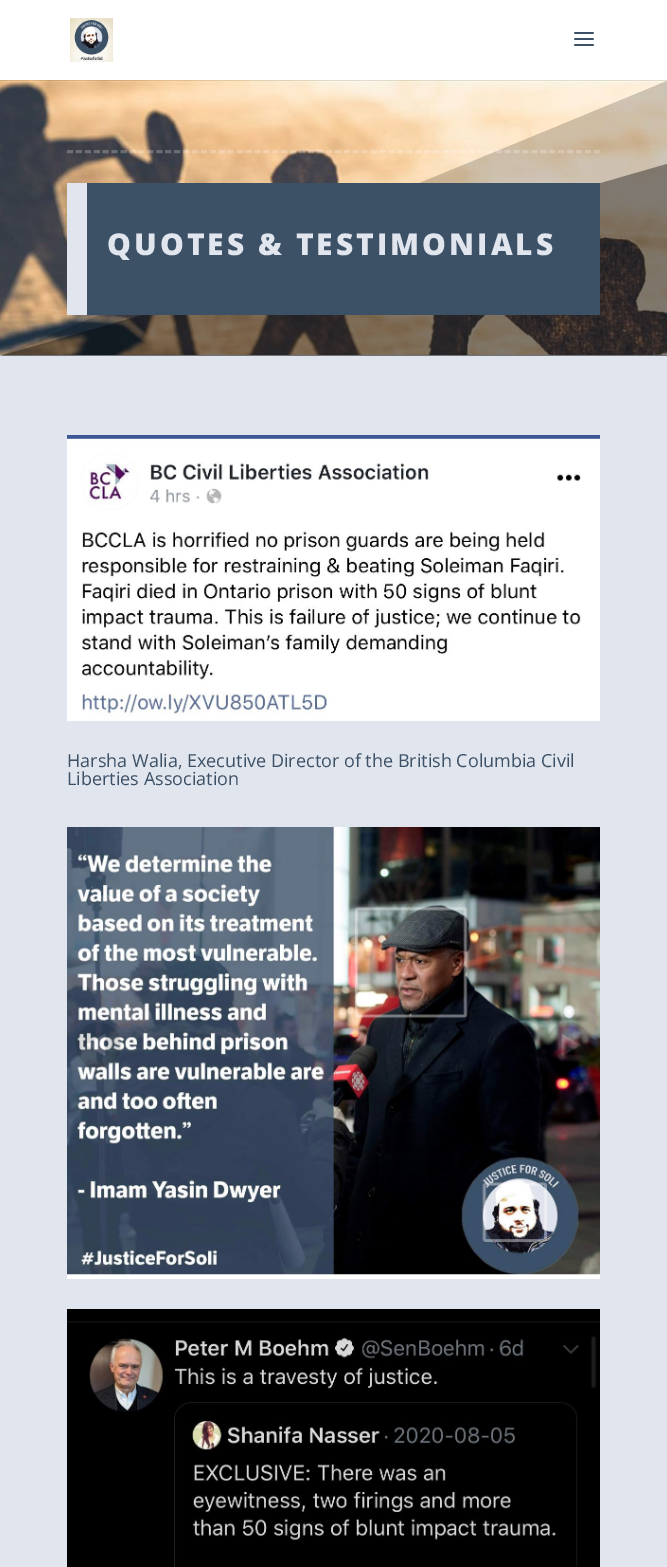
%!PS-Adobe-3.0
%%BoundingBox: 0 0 667 1567
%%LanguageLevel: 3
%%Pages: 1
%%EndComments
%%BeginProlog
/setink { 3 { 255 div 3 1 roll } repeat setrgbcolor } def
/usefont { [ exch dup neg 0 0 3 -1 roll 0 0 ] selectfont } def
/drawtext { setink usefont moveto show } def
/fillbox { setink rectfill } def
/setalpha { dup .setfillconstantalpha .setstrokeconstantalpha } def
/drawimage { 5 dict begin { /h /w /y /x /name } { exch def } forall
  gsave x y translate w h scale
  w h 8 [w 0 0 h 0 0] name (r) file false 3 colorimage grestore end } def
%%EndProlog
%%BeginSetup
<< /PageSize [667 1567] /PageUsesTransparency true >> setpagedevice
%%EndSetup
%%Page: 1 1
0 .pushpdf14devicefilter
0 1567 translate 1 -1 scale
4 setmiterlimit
0 0 667 1567 255 255 255 fillbox
(assets/img3.rgb) 0 80 667 275 drawimage
0.1 setalpha
0 80 667 1 0 0 0 fillbox
1 setalpha
(assets/img1.rgb) 70 18 43 44 drawimage
(assets/img2.rgb) 574 32 20 14 drawimage
0 355 667 1212 225 229 238 fillbox
0.19 setalpha
0 0 0 setink
667 81 moveto 667 356 lineto 0 356 lineto closepath fill
0.38 setalpha
667 164 moveto 667 356 lineto 0 356 lineto closepath fill
0.24 setalpha
255 255 255 setink
3 setlinewidth
[6 2.93] 0 setdash
67 151.5 moveto 600 151.5 lineto stroke
1 setalpha
67 183 20 132 225 229 238 fillbox
87 183 513 132 60 81 102 fillbox
/OpenSans-ExtraBold 30 usefont
225 229 238 setink
107 255 moveto 3 0 (QUOTES & TESTIMONIALS) ashow
(assets/img4.rgb) 67 435 533 286 drawimage
(Harsha Walia, Executive Director of the British Columbia Civil) 67 767 /OpenSans-Regular 18 60 81 102 drawtext
(Liberties Association) 67 785 /OpenSans-Regular 18 60 81 102 drawtext
(assets/img5.rgb) 67 827 533 452 drawimage
(assets/img6.rgb) 67 1309 533 258 drawimage
.poppdf14devicefilter showpage
%%EOF
